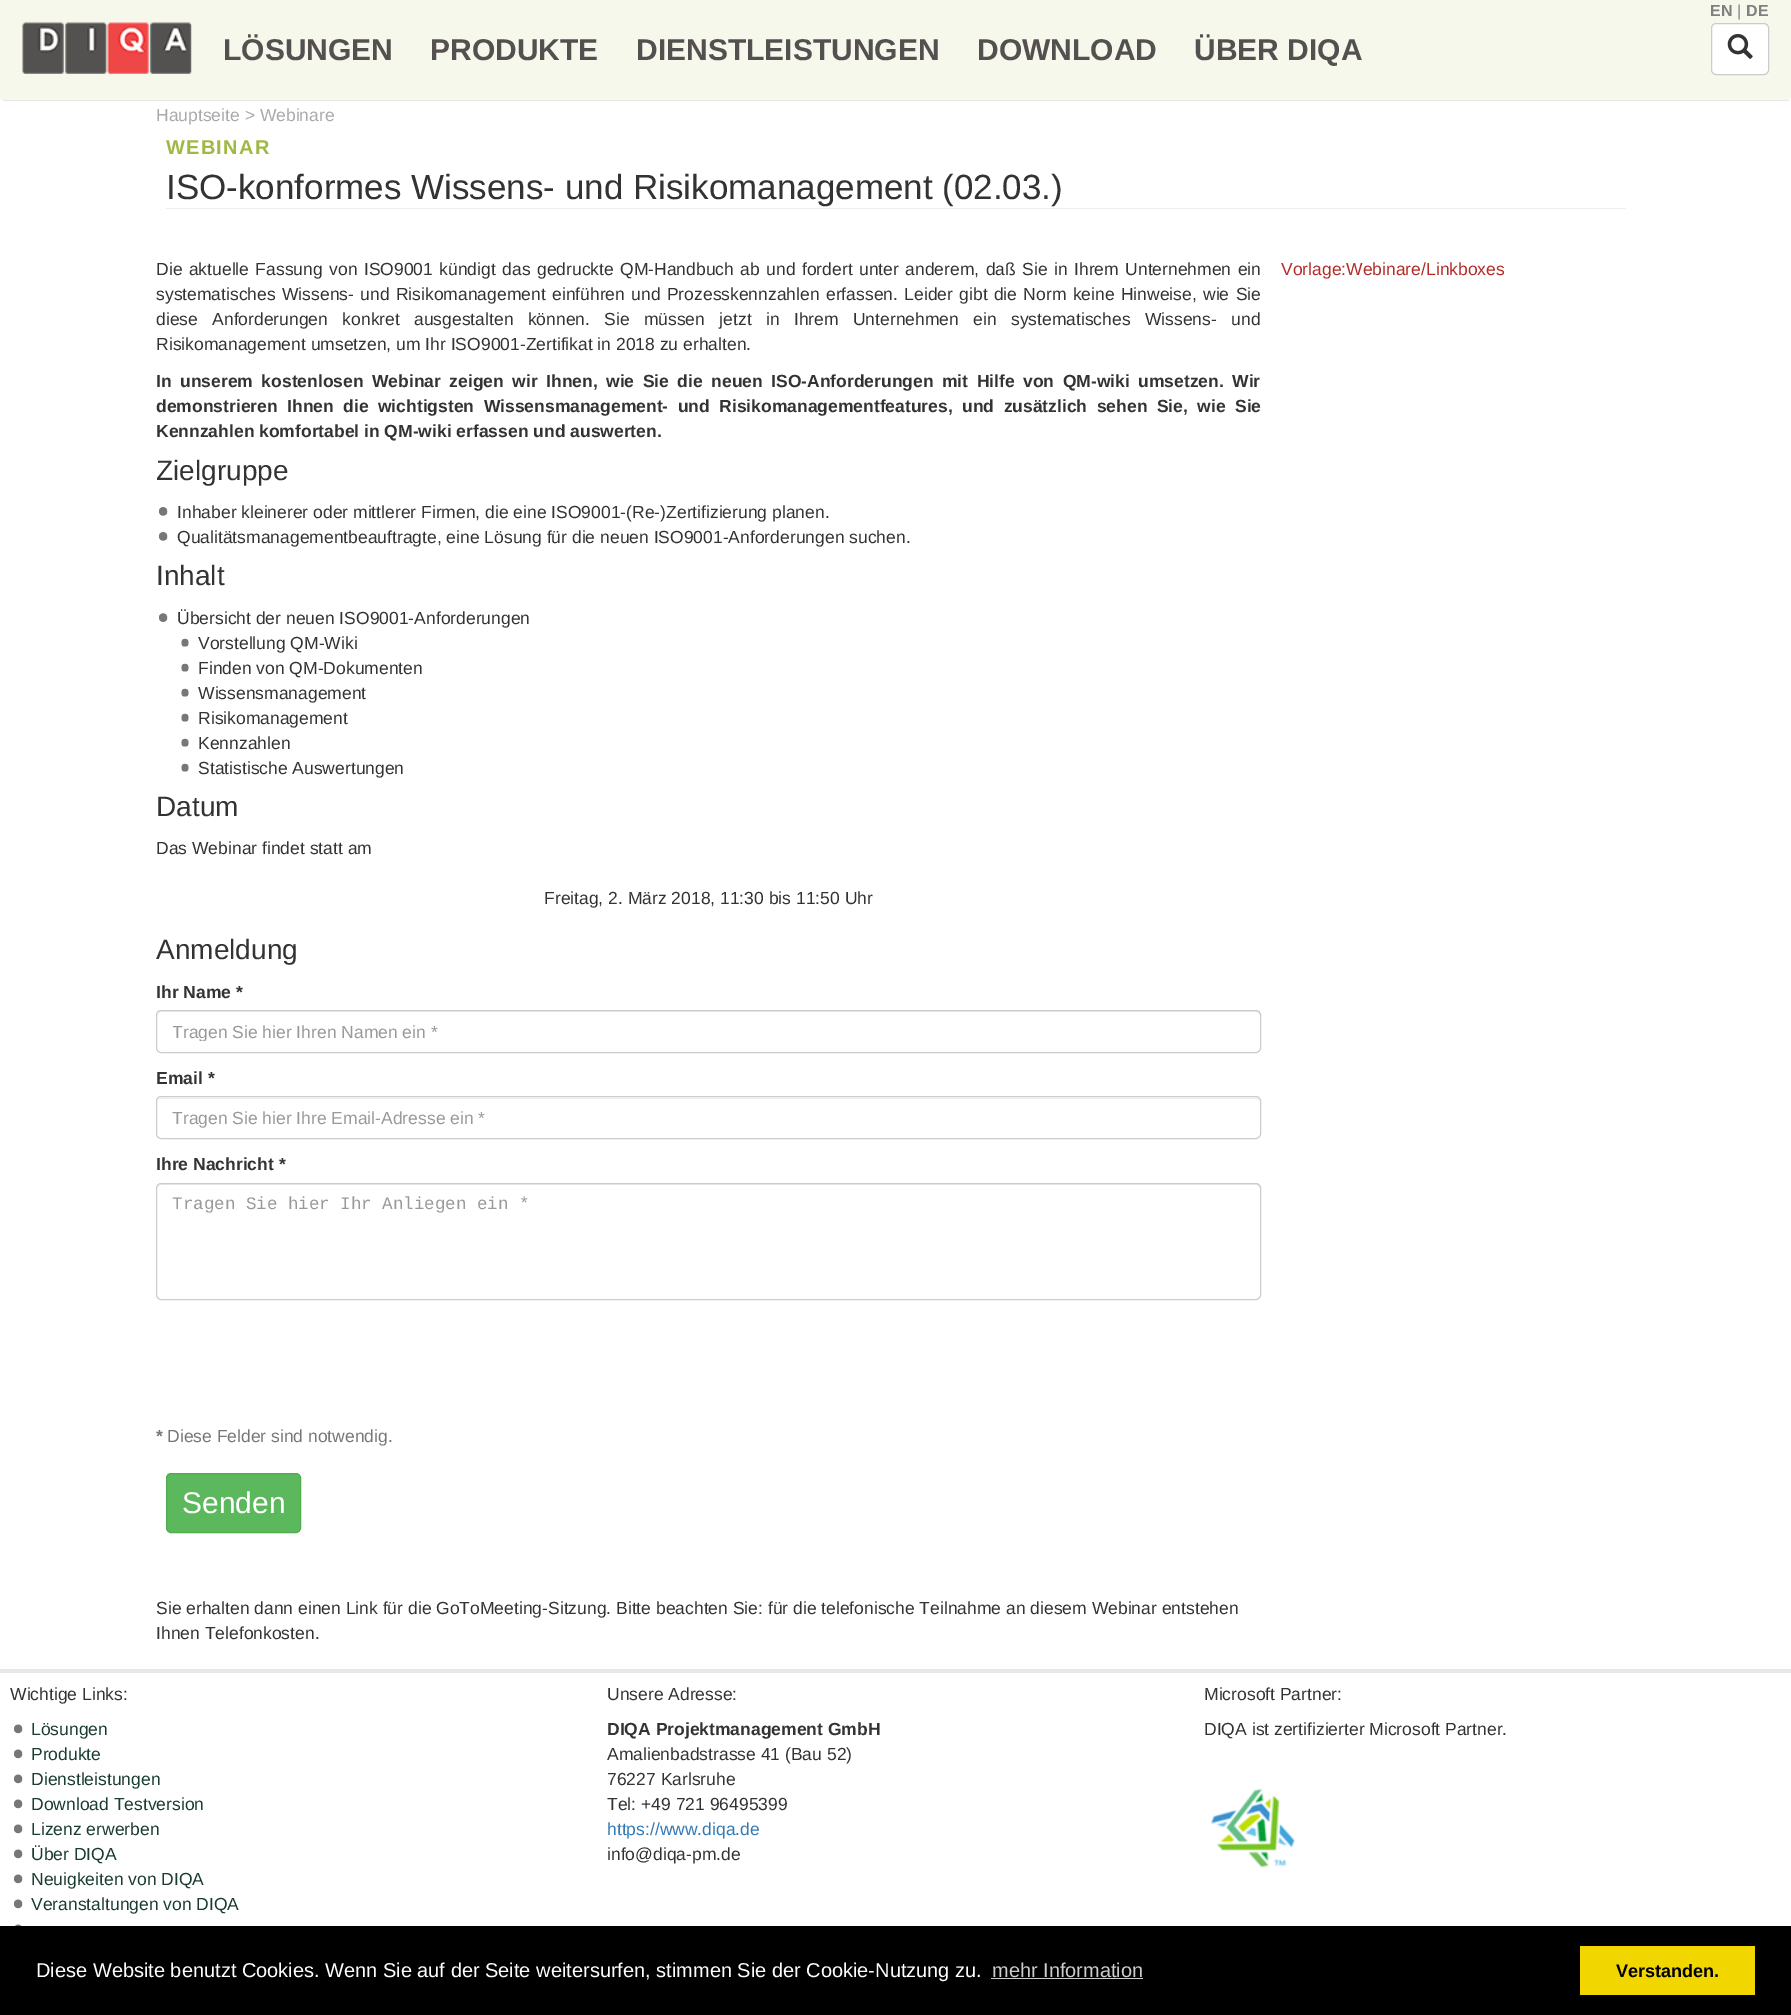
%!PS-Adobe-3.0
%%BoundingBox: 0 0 1791 2015
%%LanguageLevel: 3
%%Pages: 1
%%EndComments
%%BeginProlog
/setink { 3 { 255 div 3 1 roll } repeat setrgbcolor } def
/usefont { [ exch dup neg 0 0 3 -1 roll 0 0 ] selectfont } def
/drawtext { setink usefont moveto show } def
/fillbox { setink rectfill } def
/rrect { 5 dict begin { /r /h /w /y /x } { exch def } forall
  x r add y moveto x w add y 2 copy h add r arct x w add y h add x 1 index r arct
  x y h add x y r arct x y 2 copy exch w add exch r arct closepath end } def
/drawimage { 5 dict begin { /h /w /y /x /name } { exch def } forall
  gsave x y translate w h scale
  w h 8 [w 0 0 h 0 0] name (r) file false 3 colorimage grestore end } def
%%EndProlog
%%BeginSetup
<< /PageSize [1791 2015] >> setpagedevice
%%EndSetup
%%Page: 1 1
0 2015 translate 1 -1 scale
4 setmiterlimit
0 0 1791 2015 255 255 255 fillbox
246 248 236 setink
0 -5 1791 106 5 rrect fill
3 100 1786 1 231 231 231 fillbox
(assets/img1.rgb) 22 22 170 52 drawimage
(EN) 1710 16 /LiberationSans-Bold 16 128 128 128 drawtext
(|) 1737 16 /LiberationSans-Regular 16 128 128 128 drawtext
(DE) 1746 16 /LiberationSans-Bold 16 128 128 128 drawtext
(LÖSUNGEN) 223 60 /LiberationSans-Bold 30 84 80 80 drawtext
(PRODUKTE) 430 60 /LiberationSans-Bold 30 84 80 80 drawtext
(DIENSTLEISTUNGEN) 636 60 /LiberationSans-Bold 30 84 80 80 drawtext
(DOWNLOAD) 977 60 /LiberationSans-Bold 30 84 80 80 drawtext
(ÜBER DIQA) 1194 60 /LiberationSans-Bold 30 84 80 80 drawtext
255 255 255 setink
1711.5 23.5 57 51 4.5 rrect gsave fill grestore
204 204 204 setink
stroke
(assets/img2.rgb) 1727 33 26 26 drawimage
(Hauptseite > Webinare) 156 121 /LiberationSans-Regular 17.5 170 170 170 drawtext
166 208 1460 1 238 238 238 fillbox
/LiberationSans-Bold 20 usefont
160 184 68 setink
166 154 moveto 1.25 0 (WEBINAR) ashow
(ISO-konformes Wissens- und Risikomanagement \(02.03.\)) 166 199 /LiberationSans-Regular 35 51 51 51 drawtext
/LiberationSans-Regular 17.5 usefont
156 275 moveto 1.6 0 32 (Die aktuelle Fassung von ISO9001 kündigt das gedruckte QM-Handbuch ab und fordert unter anderem, daß Sie in Ihrem Unternehmen ein) widthshow
156 300 moveto 1.5 0 32 (systematisches Wissens- und Risikomanagement einführen und Prozesskennzahlen erfassen. Leider gibt die Norm keine Hinweise, wie Sie) widthshow
156 325 moveto 9.5 0 32 (diese Anforderungen konkret ausgestalten können.) widthshow
604 325 moveto 9.5 0 32 (Sie müssen jetzt in Ihrem Unternehmen ein systematisches Wissens- und) widthshow
(Risikomanagement umsetzen, um Ihr ISO9001-Zertifikat in 2018 zu erhalten.) 156 350 /LiberationSans-Regular 17.5 51 51 51 drawtext
/LiberationSans-Bold 17.5 usefont
156 387 moveto 3.6 0 32 (In unserem kostenlosen Webinar zeigen wir Ihnen, wie Sie die neuen ISO-Anforderungen mit Hilfe von QM-wiki umsetzen. Wir) widthshow
156 412 moveto 4.6 0 32 (demonstrieren Ihnen die wichtigsten Wissensmanagement- und Risikomanagementfeatures, und zusätzlich sehen Sie, wie Sie) widthshow
(Kennzahlen komfortabel in QM-wiki erfassen und auswerten.) 156 437 /LiberationSans-Bold 17.5 51 51 51 drawtext
(Zielgruppe) 156 480 /LiberationSans-Regular 28 51 51 51 drawtext
(assets/img3.rgb) 159 507 9 9 drawimage
(Inhaber kleinerer oder mittlerer Firmen, die eine ISO9001-\(Re-\)Zertifizierung planen.) 177 518 /LiberationSans-Regular 17.5 51 51 51 drawtext
(assets/img4.rgb) 159 532 9 9 drawimage
(Qualitätsmanagementbeauftragte, eine Lösung für die neuen ISO9001-Anforderungen suchen.) 177 543 /LiberationSans-Regular 17.5 51 51 51 drawtext
(Inhalt) 156 585 /LiberationSans-Regular 28 51 51 51 drawtext
(assets/img5.rgb) 159 613 9 9 drawimage
(Übersicht der neuen ISO9001-Anforderungen) 177 624 /LiberationSans-Regular 17.5 51 51 51 drawtext
(assets/img6.rgb) 181 638 8 9 drawimage
(Vorstellung QM-Wiki) 198 649 /LiberationSans-Regular 17.5 51 51 51 drawtext
(assets/img6.rgb) 181 663 8 9 drawimage
(Finden von QM-Dokumenten) 198 674 /LiberationSans-Regular 17.5 51 51 51 drawtext
(assets/img6.rgb) 181 688 8 9 drawimage
(Wissensmanagement) 198 699 /LiberationSans-Regular 17.5 51 51 51 drawtext
(assets/img6.rgb) 181 713 8 9 drawimage
(Risikomanagement) 198 724 /LiberationSans-Regular 17.5 51 51 51 drawtext
(assets/img6.rgb) 181 738 8 9 drawimage
(Kennzahlen) 198 749 /LiberationSans-Regular 17.5 51 51 51 drawtext
(assets/img6.rgb) 181 763 8 9 drawimage
(Statistische Auswertungen) 198 774 /LiberationSans-Regular 17.5 51 51 51 drawtext
(Datum) 156 816 /LiberationSans-Regular 28 51 51 51 drawtext
(Das Webinar findet statt am) 156 854 /LiberationSans-Regular 17.5 51 51 51 drawtext
(Freitag, 2. März 2018, 11:30 bis 11:50 Uhr) 544 904 /LiberationSans-Regular 17.5 51 51 51 drawtext
(Anmeldung) 156 959 /LiberationSans-Regular 28 51 51 51 drawtext
(Ihr Name *) 156 998 /LiberationSans-Bold 17.5 51 51 51 drawtext
236 236 236 setink
161 1012 moveto 1256 1012 lineto 1258 1012 1260 1014 1260 1016 curveto 1260 1013 1259 1011 1256 1011 curveto 162 1011 lineto 159 1011 158 1013 158 1016 curveto 158 1014 159 1012 161 1012 curveto closepath fill
204 204 204 setink
156.5 1010.5 1104 42 4.5 rrect stroke
gsave
173 1021 1072 20 rectclip
(Tragen Sie hier Ihren Namen ein *) 172 1038 /LiberationSans-Regular 17.5 153 153 153 drawtext
grestore
(Email *) 156 1084 /LiberationSans-Bold 17.5 51 51 51 drawtext
236 236 236 setink
161 1099 moveto 1256 1099 lineto 1258 1099 1260 1100 1260 1102 curveto 1260 1100 1258 1098 1256 1098 curveto 162 1098 lineto 161 1098 159 1099 159 1100 curveto closepath fill
204 204 204 setink
156.5 1096.5 1104 42 4.5 rrect stroke
(Tragen Sie hier Ihre Email-Adresse ein *) 172 1124 /LiberationSans-Regular 17.5 153 153 153 drawtext
(Ihre Nachricht *) 156 1170 /LiberationSans-Bold 17.5 51 51 51 drawtext
236 236 236 setink
161 1185 moveto 1256 1185 lineto 1258 1185 1260 1187 1260 1189 curveto 1260 1186 1259 1184 1256 1184 curveto 162 1184 lineto 159 1184 158 1186 158 1189 curveto 158 1187 159 1185 161 1185 curveto closepath fill
204 204 204 setink
156.5 1183.5 1104 116 4.5 rrect stroke
(Tragen Sie hier Ihr Anliegen ein *) 172 1209 /LiberationMono-Regular 17.5 153 153 153 drawtext
(*) 156 1442 /LiberationSans-Bold 17.5 119 119 119 drawtext
(Diese Felder sind notwendig.) 167 1442 /LiberationSans-Regular 17.5 119 119 119 drawtext
92 184 92 setink
166.5 1473.5 134 59 4.5 rrect gsave fill grestore
76 174 76 setink
stroke
(Senden) 182 1513 /LiberationSans-Regular 30 255 255 255 drawtext
(Sie erhalten dann einen Link für die GoToMeeting-Sitzung. Bitte beachten Sie: für die telefonische Teilnahme an diesem Webinar entstehen) 156 1614 /LiberationSans-Regular 17.5 51 51 51 drawtext
(Ihnen Telefonkosten.) 156 1639 /LiberationSans-Regular 17.5 51 51 51 drawtext
(Vorlage:Webinare/Linkboxes) 1281 275 /LiberationSans-Regular 17.5 181 43 39 drawtext
0 1669 1791 4 231 231 231 fillbox
(Wichtige Links:) 10 1700 /LiberationSans-Regular 17.5 51 51 51 drawtext
(assets/img7.rgb) 14 1724 9 10 drawimage
(Lösungen) 31 1735 /LiberationSans-Regular 17.5 27 61 47 drawtext
(assets/img7.rgb) 14 1749 9 10 drawimage
(Produkte) 31 1760 /LiberationSans-Regular 17.5 27 61 47 drawtext
(assets/img7.rgb) 14 1774 9 10 drawimage
(Dienstleistungen) 31 1785 /LiberationSans-Regular 17.5 27 61 47 drawtext
(assets/img7.rgb) 14 1799 9 10 drawimage
(Download Testversion) 31 1810 /LiberationSans-Regular 17.5 27 61 47 drawtext
(assets/img7.rgb) 14 1824 9 10 drawimage
(Lizenz erwerben) 31 1835 /LiberationSans-Regular 17.5 27 61 47 drawtext
(assets/img7.rgb) 14 1849 9 10 drawimage
(Über DIQA) 31 1860 /LiberationSans-Regular 17.5 27 61 47 drawtext
(assets/img7.rgb) 14 1874 9 10 drawimage
(Neuigkeiten von DIQA) 31 1885 /LiberationSans-Regular 17.5 27 61 47 drawtext
(assets/img7.rgb) 14 1899 9 10 drawimage
(Veranstaltungen von DIQA) 31 1910 /LiberationSans-Regular 17.5 27 61 47 drawtext
(assets/img8.rgb) 15 1924 7 2 drawimage
(Unsere Adresse:) 607 1700 /LiberationSans-Regular 17.5 51 51 51 drawtext
(DIQA Projektmanagement GmbH) 607 1735 /LiberationSans-Bold 17.5 51 51 51 drawtext
(Amalienbadstrasse 41 \(Bau 52\)) 607 1760 /LiberationSans-Regular 17.5 51 51 51 drawtext
(76227 Karlsruhe) 607 1785 /LiberationSans-Regular 17.5 51 51 51 drawtext
(Tel: +49 721 96495399) 607 1810 /LiberationSans-Regular 17.5 51 51 51 drawtext
(https://www.diqa.de) 607 1835 /LiberationSans-Regular 17.5 51 122 183 drawtext
(info@diqa-pm.de) 607 1860 /LiberationSans-Regular 17.5 51 51 51 drawtext
(Microsoft Partner:) 1204 1700 /LiberationSans-Regular 17.5 51 51 51 drawtext
(DIQA ist zertifizierter Microsoft Partner.) 1204 1735 /LiberationSans-Regular 17.5 51 51 51 drawtext
(assets/img9.rgb) 1211 1788 85 80 drawimage
0 1926 1791 89 0 0 0 fillbox
(Diese Website benutzt Cookies. Wenn Sie auf der Seite weitersurfen, stimmen Sie der Cookie-Nutzung zu.) 36 1977 /LiberationSans-Regular 20 255 255 255 drawtext
(mehr Information) 992 1977 /LiberationSans-Regular 20 204 204 204 drawtext
991 1978 152 1 204 204 204 fillbox
1580 1946 175 49 241 214 0 fillbox
(Verstanden.) 1616 1977 /LiberationSans-Bold 18 0 0 0 drawtext
showpage
%%EOF
